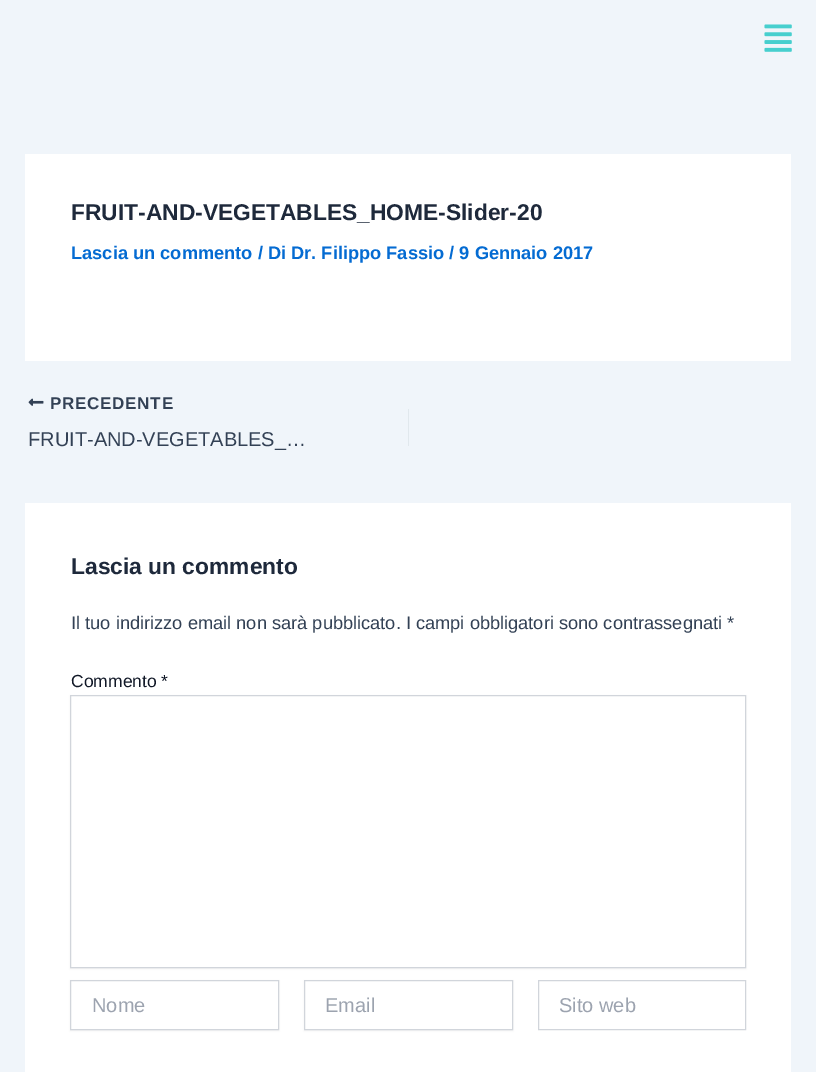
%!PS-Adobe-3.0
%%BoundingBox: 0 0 816 1072
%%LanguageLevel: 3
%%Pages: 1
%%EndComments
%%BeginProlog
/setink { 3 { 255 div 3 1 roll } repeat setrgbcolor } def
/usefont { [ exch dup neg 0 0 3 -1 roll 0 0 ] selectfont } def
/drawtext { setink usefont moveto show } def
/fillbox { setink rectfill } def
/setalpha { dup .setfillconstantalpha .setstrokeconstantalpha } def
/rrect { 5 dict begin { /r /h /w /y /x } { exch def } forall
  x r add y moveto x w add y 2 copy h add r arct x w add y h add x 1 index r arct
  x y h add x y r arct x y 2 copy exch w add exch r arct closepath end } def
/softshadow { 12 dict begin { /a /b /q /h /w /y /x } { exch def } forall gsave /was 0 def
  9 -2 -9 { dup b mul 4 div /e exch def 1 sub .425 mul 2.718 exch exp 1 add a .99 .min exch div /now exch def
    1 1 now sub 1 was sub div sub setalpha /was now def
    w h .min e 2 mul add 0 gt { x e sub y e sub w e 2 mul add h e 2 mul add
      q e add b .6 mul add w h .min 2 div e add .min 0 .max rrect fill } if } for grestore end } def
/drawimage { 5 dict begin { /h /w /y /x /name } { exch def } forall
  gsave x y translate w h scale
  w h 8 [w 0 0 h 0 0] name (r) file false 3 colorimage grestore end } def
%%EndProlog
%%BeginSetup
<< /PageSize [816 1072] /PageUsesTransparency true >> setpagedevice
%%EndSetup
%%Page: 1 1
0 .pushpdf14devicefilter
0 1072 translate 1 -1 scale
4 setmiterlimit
0 0 816 1072 240 245 250 fillbox
(assets/img1.rgb) 764 24 28 28 drawimage
25 154 766 207 255 255 255 fillbox
(FRUIT-AND-VEGETABLES_HOME-Slider-20) 71 220 /LiberationSans-Bold 22.8 30 41 59 drawtext
(Lascia un commento / Di Dr. Filippo Fassio / 9 Gennaio 2017) 71 259 /LiberationSans-Bold 18.25 4 107 210 drawtext
(assets/img2.rgb) 28 398 16 8 drawimage
/LiberationSans-Bold 17 usefont
51 65 85 setink
50 409 moveto 0.75 0 (PRECEDENTE) ashow
(FRUIT-AND-VEGETABLES_…) 28 446 /LiberationSans-Regular 20 51 65 85 drawtext
408 409 1 37 225 232 237 fillbox
25 503 766 569 255 255 255 fillbox
(Lascia un commento) 71 574 /LiberationSans-Bold 22.8 30 41 59 drawtext
(Il tuo indirizzo email non sarà pubblicato. I campi obbligatori sono contrassegnati *) 71 629 /LiberationSans-Regular 18.25 51 65 85 drawtext
(Commento *) 71 687 /LiberationSans-Regular 17.5 17 24 39 drawtext
0 0 0 setink
70 696 676 273 0 1 0.05 softshadow
255 255 255 setink
70.5 695.5 moveto 745.5 695.5 lineto 745.5 967.5 lineto 70.5 967.5 lineto closepath gsave fill grestore
209 213 219 setink
stroke
0 0 0 setink
70 981 209 50 0 1 0.05 softshadow
255 255 255 setink
70.5 980.5 moveto 278.5 980.5 lineto 278.5 1029.5 lineto 70.5 1029.5 lineto closepath gsave fill grestore
209 213 219 setink
stroke
(Nome) 92 1012 /LiberationSans-Regular 20 156 163 175 drawtext
0 0 0 setink
304 981 209 50 0 1 0.05 softshadow
255 255 255 setink
304.5 980.5 moveto 512.5 980.5 lineto 512.5 1029.5 lineto 304.5 1029.5 lineto closepath gsave fill grestore
209 213 219 setink
stroke
(Email) 325 1012 /LiberationSans-Regular 20 156 163 175 drawtext
209 213 219 setink
538.5 980.5 207 49 rectstroke
(Sito web) 559 1012 /LiberationSans-Regular 20 156 163 175 drawtext
.poppdf14devicefilter showpage
%%EOF
